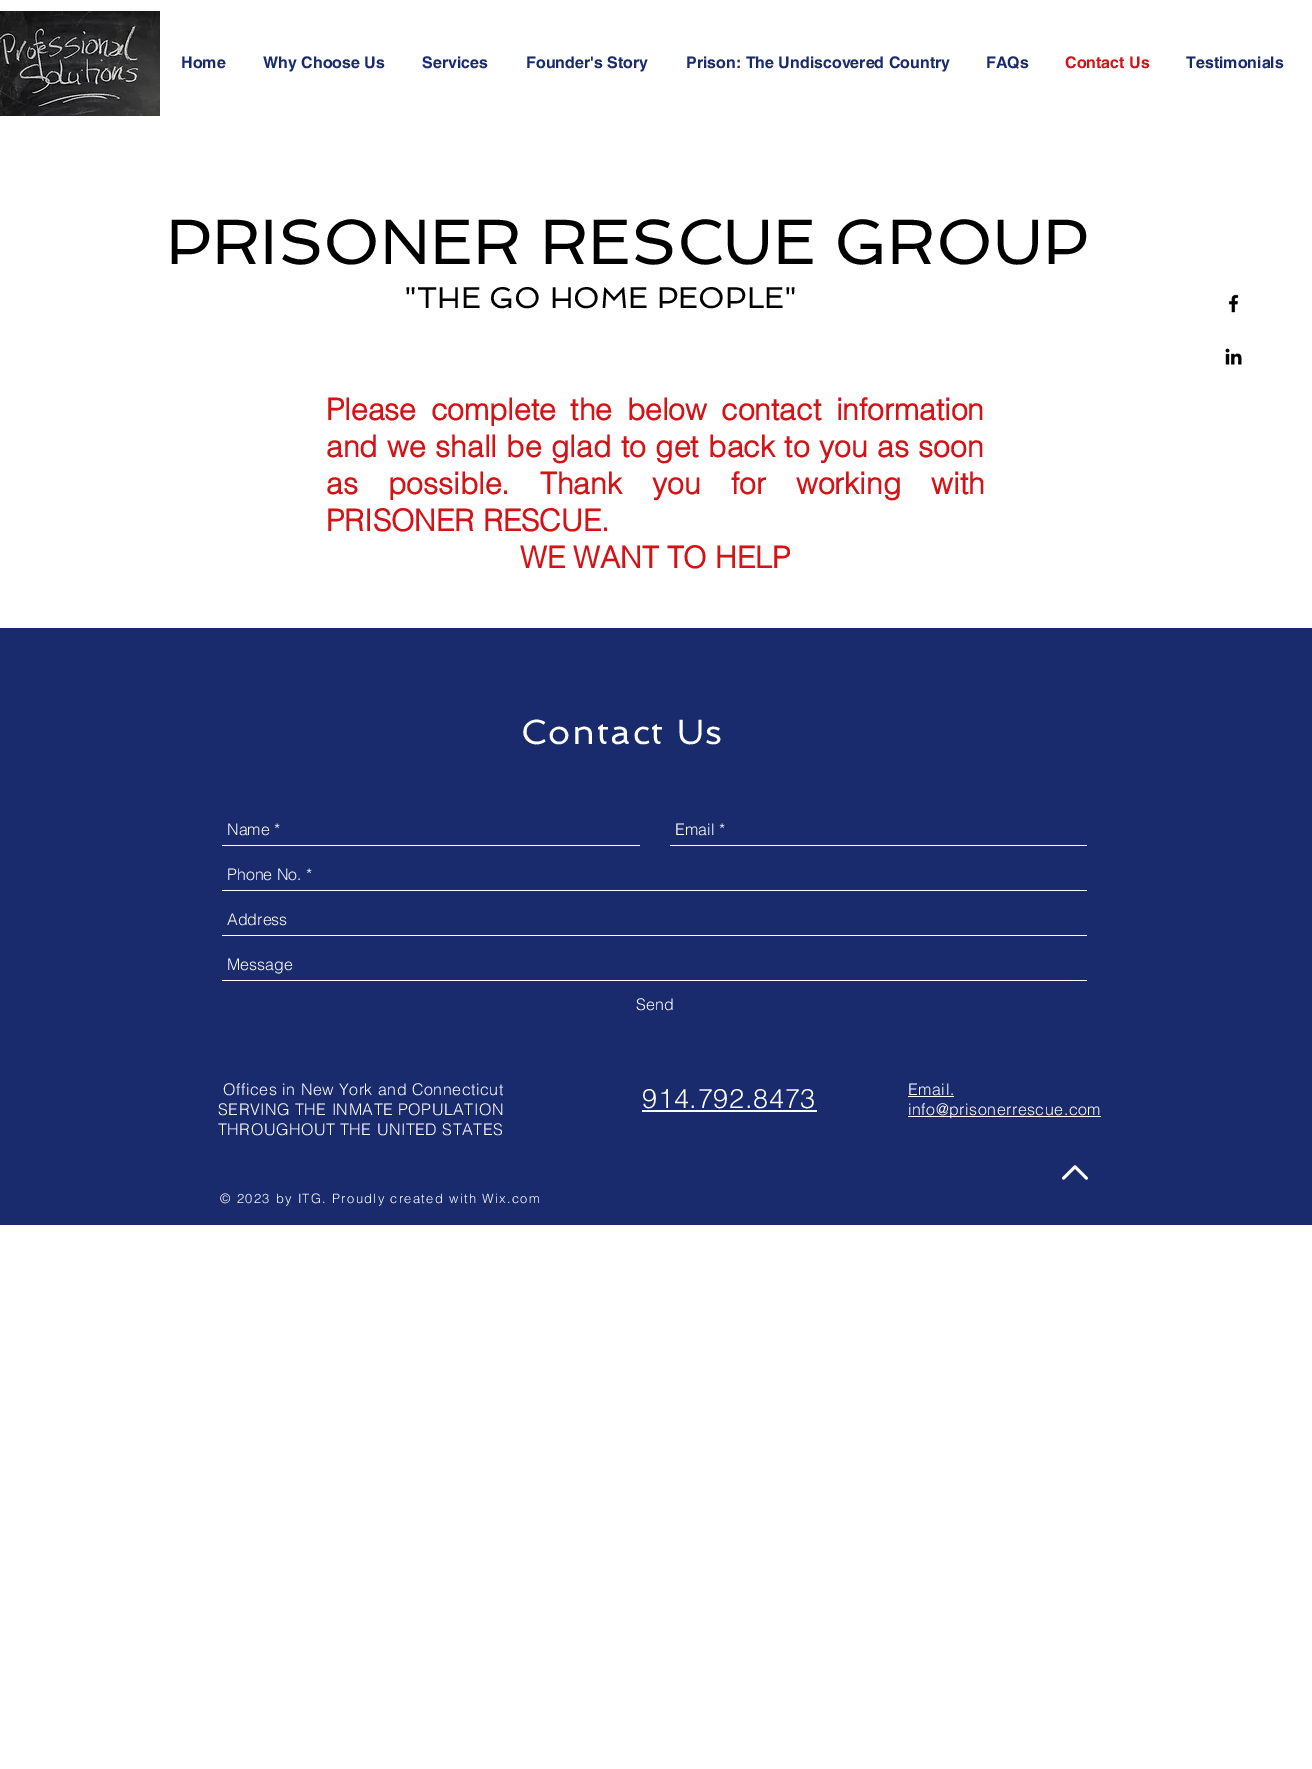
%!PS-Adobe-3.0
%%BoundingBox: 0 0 1312 1769
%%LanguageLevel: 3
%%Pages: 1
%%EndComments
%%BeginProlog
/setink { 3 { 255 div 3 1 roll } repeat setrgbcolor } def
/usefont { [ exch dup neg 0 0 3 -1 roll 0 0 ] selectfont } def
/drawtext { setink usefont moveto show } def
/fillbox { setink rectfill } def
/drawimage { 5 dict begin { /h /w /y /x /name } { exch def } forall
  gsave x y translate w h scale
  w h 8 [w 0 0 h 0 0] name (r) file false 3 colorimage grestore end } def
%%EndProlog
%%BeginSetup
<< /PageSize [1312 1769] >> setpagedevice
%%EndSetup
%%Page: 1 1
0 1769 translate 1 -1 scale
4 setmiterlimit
0 0 1312 1769 255 255 255 fillbox
(assets/img1.rgb) 0 11 160 105 drawimage
(Home) 181 68 /helvetica-Bold 16 26 43 109 drawtext
(Why Choose Us) 263 68 /helvetica-Bold 16 26 43 109 drawtext
(Services) 422 68 /helvetica-Bold 16 26 43 109 drawtext
(Founder's Story) 526 68 /helvetica-Bold 16 26 43 109 drawtext
(Prison: The Undiscovered Country) 686 68 /helvetica-Bold 16 26 43 109 drawtext
(FAQs) 986 68 /helvetica-Bold 16 26 43 109 drawtext
(Contact Us) 1065 68 /helvetica-Bold 16 212 19 23 drawtext
(Testimonials) 1186 68 /helvetica-Bold 16 26 43 109 drawtext
(PRISONER RESCUE GROUP) 166 264 /Spinnaker-Regular 64 0 0 0 drawtext
("THE GO HOME PEOPLE") 404 308 /Spinnaker-Regular 30 0 0 0 drawtext
/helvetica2-Bold 30 usefont
212 19 23 setink
326 420 moveto 6.25 0 32 (Please complete the below contact information) widthshow
326 457 moveto 1.25 0 32 (and we shall be glad to get back to you as soon) widthshow
326 494 moveto 22 0 32 (as possible. Thank you for working with) widthshow
(PRISONER RESCUE.) 326 531 /helvetica2-Bold 30 212 19 23 drawtext
(WE WANT TO HELP) 520 568 /helvetica2-Bold 30 212 19 23 drawtext
(assets/img2.rgb) 1228 294 11 19 drawimage
(assets/img3.rgb) 1225 348 17 17 drawimage
0 628 1312 597 26 43 109 fillbox
/Spinnaker-Regular 35 usefont
255 255 255 setink
521 744 moveto 1.75 0 (Contact Us) ashow
222 845 418 1 255 255 255 fillbox
(Name *) 227 835 /helvetica-Light 16 255 255 255 drawtext
670 845 417 1 255 255 255 fillbox
(Email *) 675 835 /helvetica-Light 16 255 255 255 drawtext
222 890 865 1 255 255 255 fillbox
(Phone No. *) 227 880 /helvetica-Light 16 255 255 255 drawtext
222 935 865 1 255 255 255 fillbox
(Address) 227 925 /helvetica-Light 16 255 255 255 drawtext
222 980 865 1 255 255 255 fillbox
(Message) 227 970 /helvetica-Light 16 255 255 255 drawtext
(Send) 636 1010 /helvetica-Light 16 255 255 255 drawtext
223 1095 moveto 0.5 0 (Offices in New York and Connecticut) ashow
218 1115 moveto 0.5 0 (SERVING THE INMATE POPULATION) ashow
218 1135 moveto 0.5 0 (THROUGHOUT THE UNITED STATES) ashow
/helvetica-Light 27 usefont
642 1108 moveto 0.75 0 (914.792.8473) ashow
642 1110 175 2 255 255 255 fillbox
/helvetica-Light 16 usefont
908 1095 moveto 0.5 0 (Email.) ashow
908 1096 46 1 255 255 255 fillbox
908 1116 193 1 255 255 255 fillbox
908 1115 moveto 0.5 0 (info@prisonerrescue.com) ashow
(assets/img4.rgb) 1062 1165 26 15 drawimage
/helvetica-Light 13 usefont
220 1203 moveto 1.3 0 (© 2023 by ITG. Proudly created with Wix.com) ashow
showpage
%%EOF
